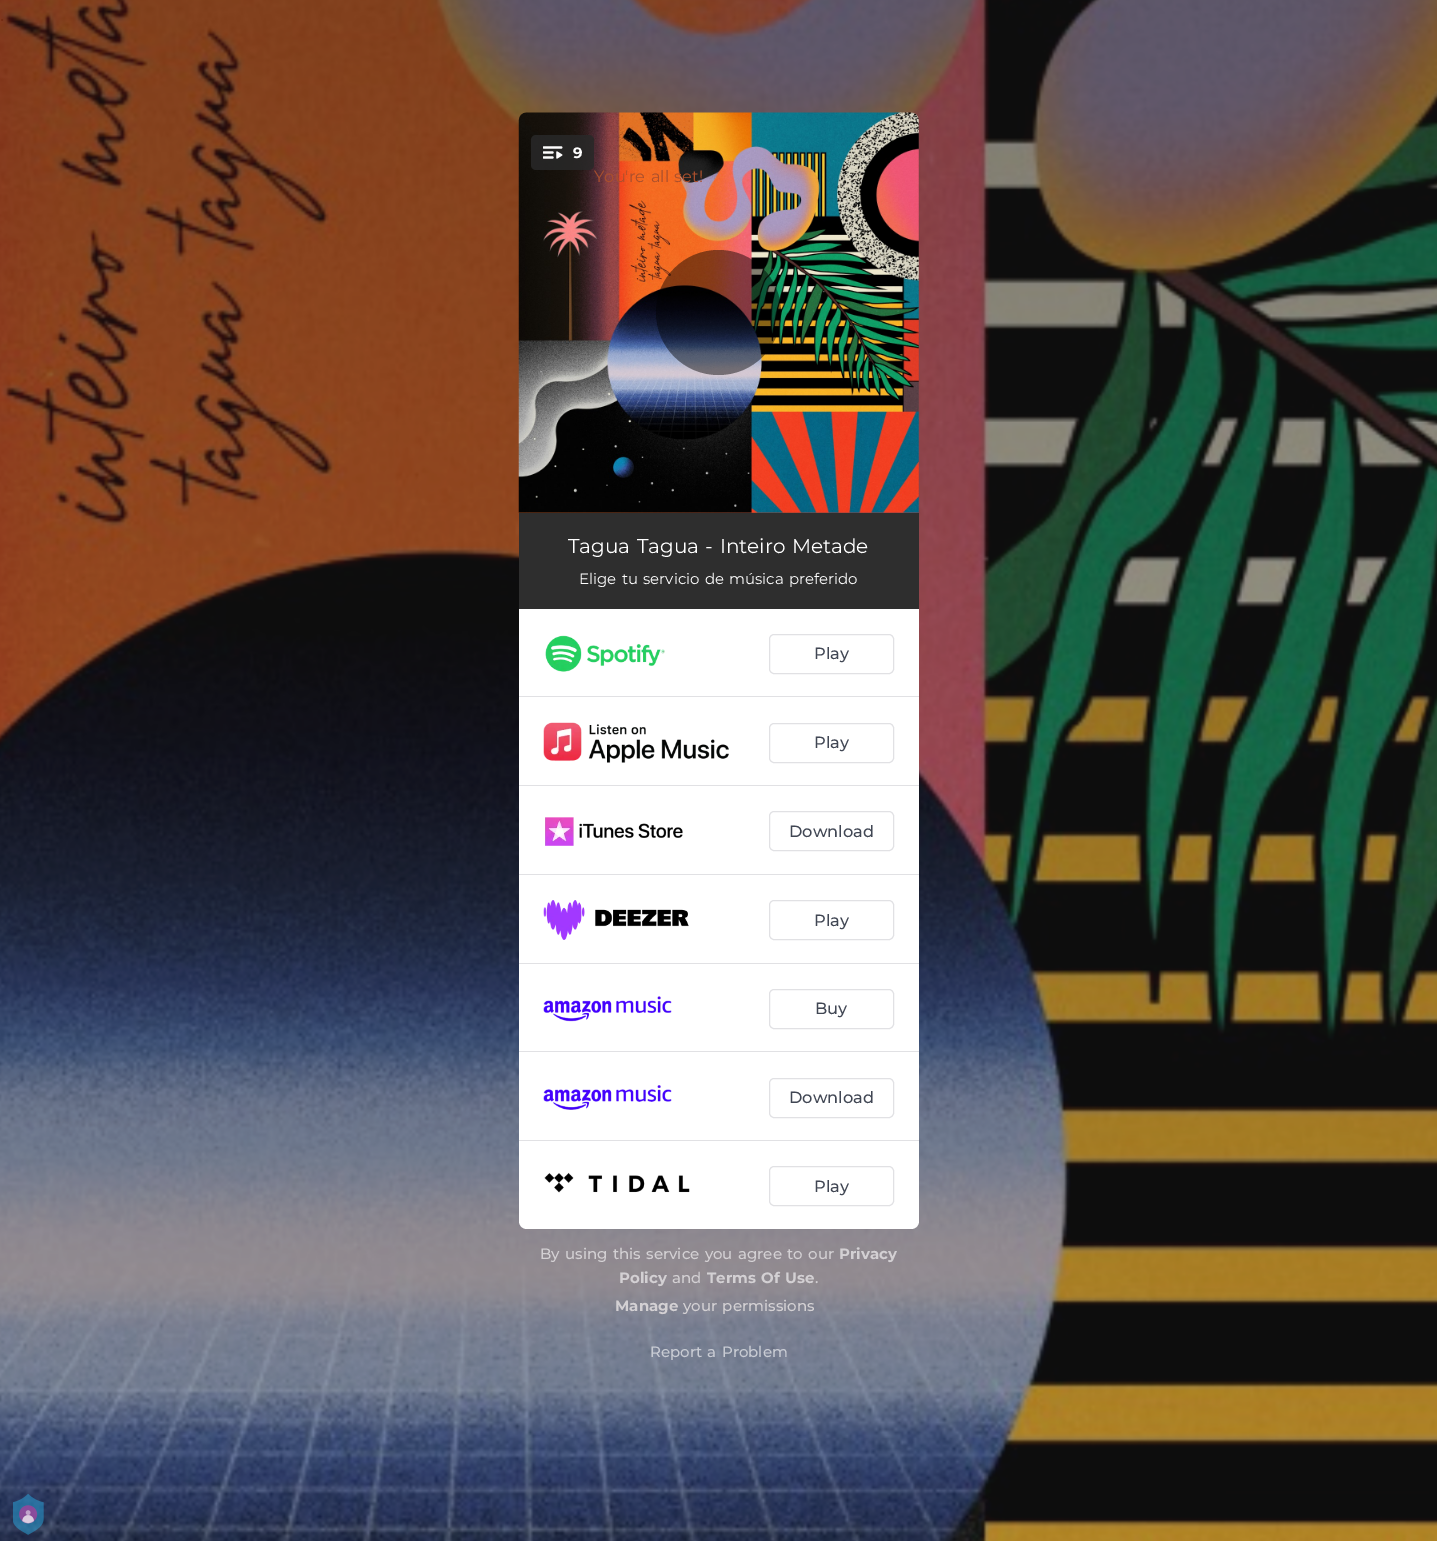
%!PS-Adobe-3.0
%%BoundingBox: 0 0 1437 1541
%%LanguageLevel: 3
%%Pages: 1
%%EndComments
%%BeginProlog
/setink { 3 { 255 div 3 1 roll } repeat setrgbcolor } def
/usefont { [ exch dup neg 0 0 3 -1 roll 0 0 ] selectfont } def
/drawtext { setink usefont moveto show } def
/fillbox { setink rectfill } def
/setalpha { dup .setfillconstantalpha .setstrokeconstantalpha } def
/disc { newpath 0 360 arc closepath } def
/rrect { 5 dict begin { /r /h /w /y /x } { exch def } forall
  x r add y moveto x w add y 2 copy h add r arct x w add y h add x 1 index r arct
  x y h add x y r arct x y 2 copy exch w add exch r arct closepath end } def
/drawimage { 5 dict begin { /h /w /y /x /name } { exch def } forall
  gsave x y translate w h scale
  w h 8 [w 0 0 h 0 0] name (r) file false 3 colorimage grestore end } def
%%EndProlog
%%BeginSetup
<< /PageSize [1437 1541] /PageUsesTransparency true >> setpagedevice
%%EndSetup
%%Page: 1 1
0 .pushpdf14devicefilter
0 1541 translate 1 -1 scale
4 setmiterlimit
0 0 1437 1541 255 255 255 fillbox
(assets/img1.rgb) 0 0 1437 1541 drawimage
(assets/img2.rgb) 518 112 401 401 drawimage
/Montserrat-Regular 16.25 usefont
170 79 44 setink
594 182 moveto 1.25 0 32 (You're all set!) widthshow
0.85 setalpha
40 40 40 setink
531 135 63 35 5 rrect fill
1 setalpha
(assets/img3.rgb) 543 146 20 13 drawimage
(9) 573 158 /Montserrat-Bold 15 255 255 255 drawtext
0.45 setalpha
0 0 0 setink
718.5 312.5 62.5 disc fill
1 setalpha
519 513 400 96 46 46 46 fillbox
/Montserrat-Regular 20 usefont
255 255 255 setink
568 553 moveto 1.25 0 32 (Tagua Tagua - Inteiro Metade) widthshow
/Montserrat-Regular 15 usefont
579 584 moveto 1.25 0 32 (Elige tu servicio de música preferido) widthshow
519 609 moveto 919 609 lineto 919 1221 lineto 919 1225.5 915.5 1229 911 1229 curveto 527 1229 lineto 522.5 1229 519 1225.5 519 1221 curveto closepath fill
519 696 400 1 225 225 228 fillbox
(assets/img4.rgb) 545 635 120 37 drawimage
769.5 634.5 124 39 4.5 rrect stroke
(Play) 814 659 /Montserrat-Medium 16.25 65 71 84 drawtext
519 785 400 1 225 225 228 fillbox
(assets/img5.rgb) 543 722 186 41 drawimage
769.5 723.5 124 39 4.5 rrect stroke
(Play) 814 748 /Montserrat-Medium 16.25 65 71 84 drawtext
519 874 400 1 225 225 228 fillbox
(assets/img6.rgb) 545 817 138 29 drawimage
769.5 811.5 124 39 4.5 rrect stroke
(Download) 789 837 /Montserrat-Medium 16.25 65 71 84 drawtext
519 963 400 1 225 225 228 fillbox
(assets/img7.rgb) 543 900 146 40 drawimage
769.5 900.5 124 39 4.5 rrect stroke
(Play) 814 926 /Montserrat-Medium 16.25 65 71 84 drawtext
519 1051 400 1 225 225 228 fillbox
(assets/img8.rgb) 543 996 129 26 drawimage
769.5 989.5 124 39 4.5 rrect stroke
(Buy) 815 1014 /Montserrat-Medium 16.25 65 71 84 drawtext
519 1140 400 1 225 225 228 fillbox
(assets/img9.rgb) 543 1085 129 25 drawimage
769.5 1078.5 124 39 4.5 rrect stroke
(Download) 789 1103 /Montserrat-Medium 16.25 65 71 84 drawtext
(assets/img10.rgb) 544 1172 146 21 drawimage
225 225 228 setink
769.5 1166.5 124 39 4.5 rrect stroke
(Play) 814 1192 /Montserrat-Medium 16.25 65 71 84 drawtext
/Montserrat-Medium 15 usefont
211 208 211 setink
540 1259 moveto 1.25 0 32 (By using this service you agree to our) widthshow
(Privacy) 839 1259 /Montserrat-Bold 15 211 208 211 drawtext
(Policy) 619 1283 /Montserrat-Bold 15 211 208 211 drawtext
(and) 672 1283 /Montserrat-Medium 15 211 208 211 drawtext
/Montserrat-Bold 15 usefont
707 1283 moveto 1.25 0 32 (Terms Of Use) widthshow
(.) 815 1283 /Montserrat-Medium 15 211 208 211 drawtext
(Manage) 615 1311 /Montserrat-Bold 15 211 208 211 drawtext
/Montserrat-Medium 15 usefont
683 1311 moveto 1.25 0 32 (your permissions) widthshow
200 203 211 setink
650 1357 moveto 1.25 0 32 (Report a Problem) widthshow
(assets/img11.rgb) 13 1494 31 41 drawimage
.poppdf14devicefilter showpage
%%EOF
